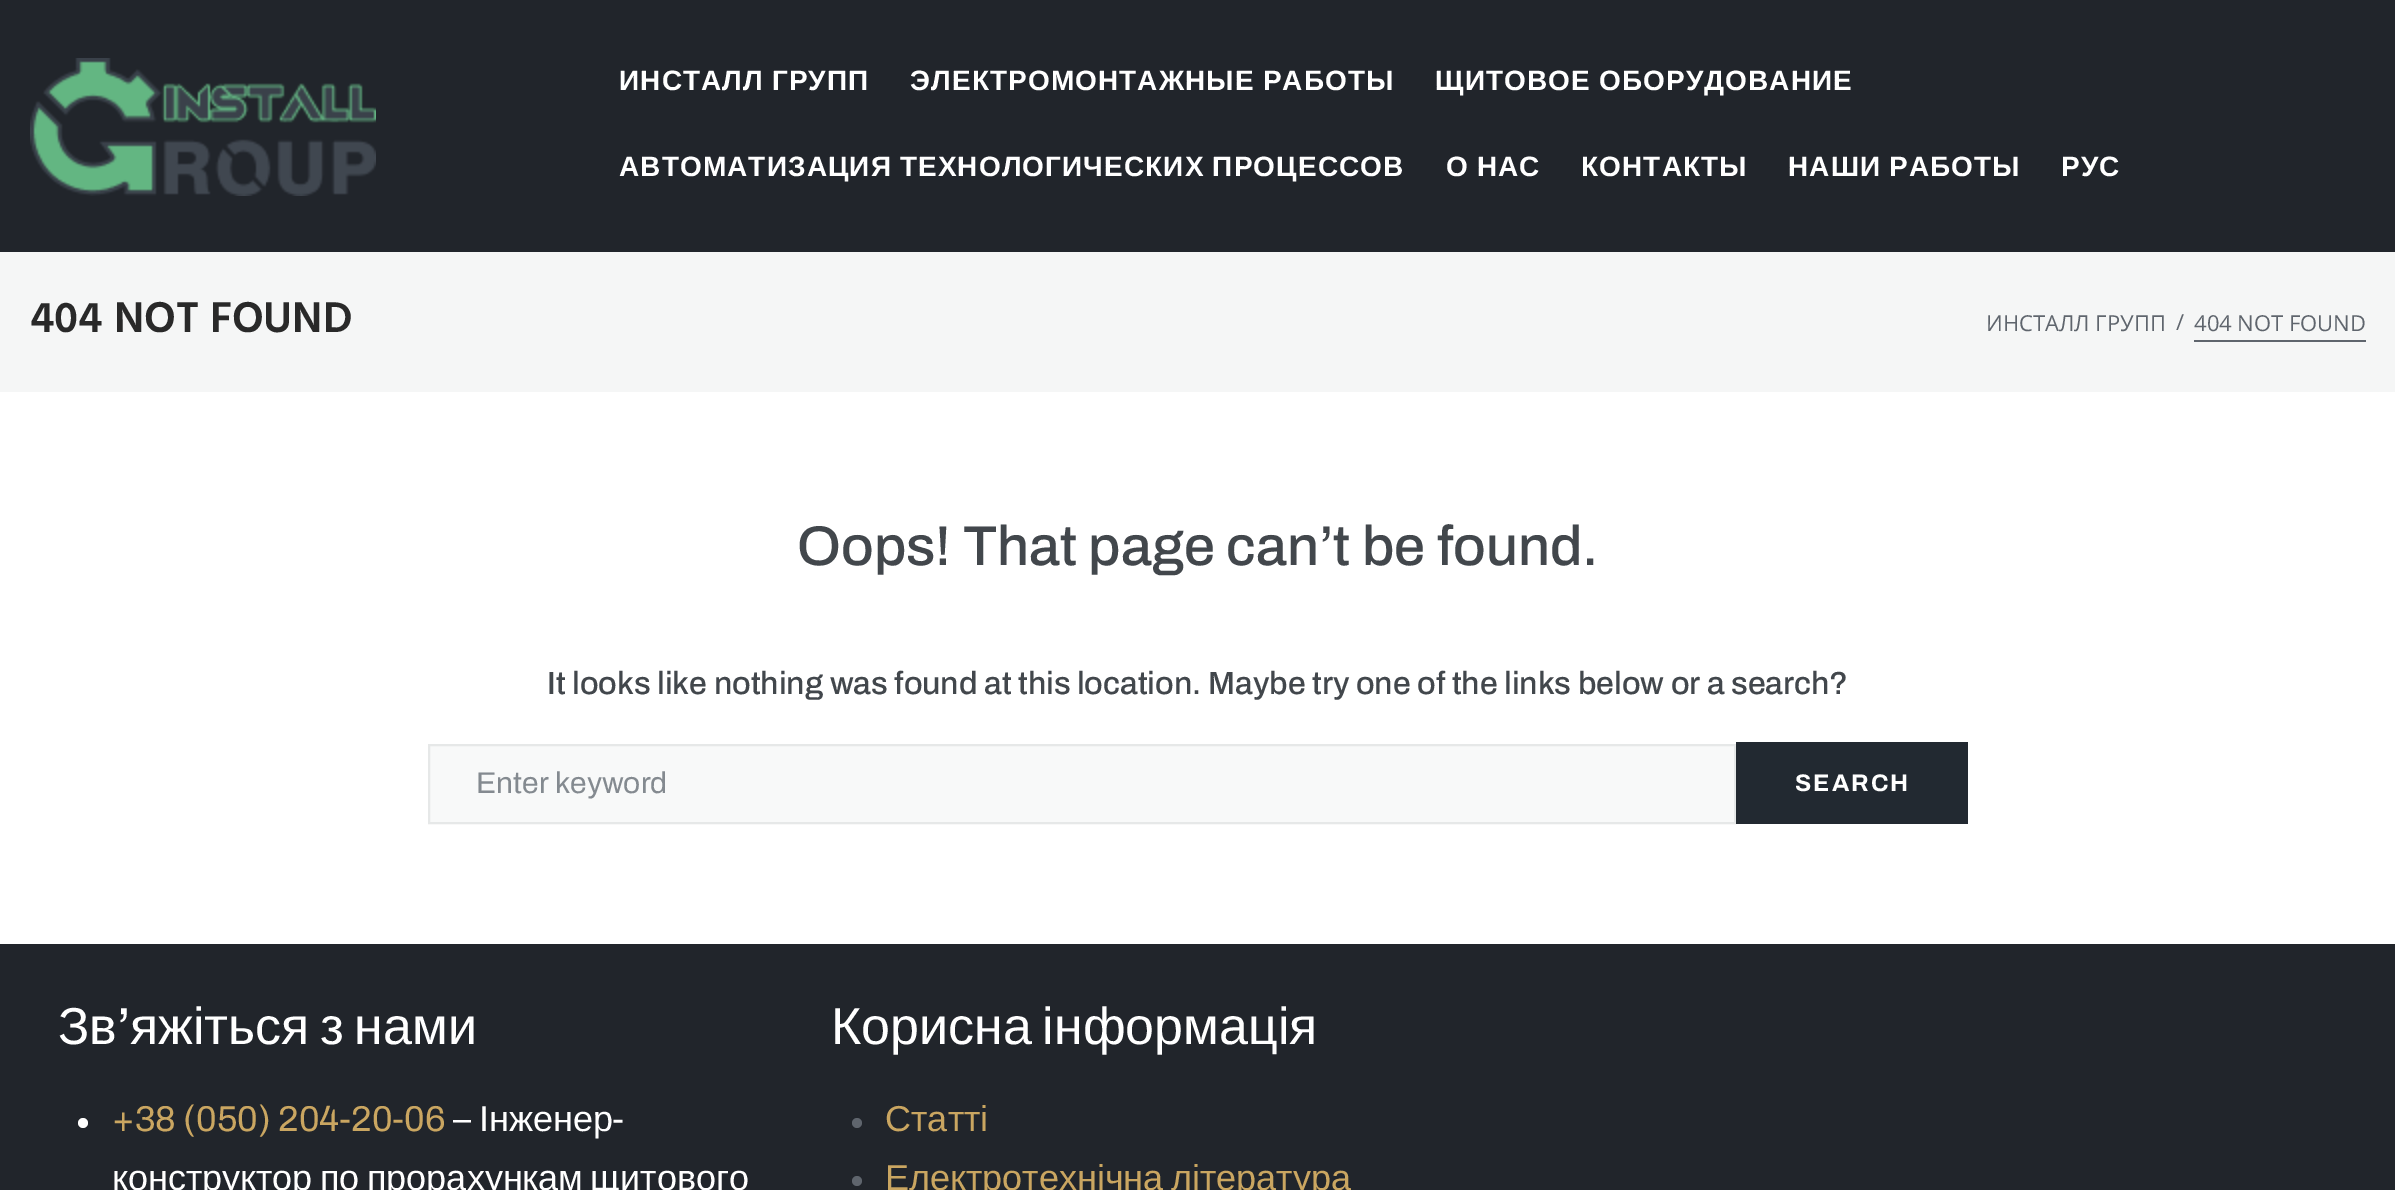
%!PS-Adobe-3.0
%%BoundingBox: 0 0 2395 1190
%%LanguageLevel: 3
%%Pages: 1
%%EndComments
%%BeginProlog
/setink { 3 { 255 div 3 1 roll } repeat setrgbcolor } def
/usefont { [ exch dup neg 0 0 3 -1 roll 0 0 ] selectfont } def
/drawtext { setink usefont moveto show } def
/fillbox { setink rectfill } def
/disc { newpath 0 360 arc closepath } def
/drawimage { 5 dict begin { /h /w /y /x /name } { exch def } forall
  gsave x y translate w h scale
  w h 8 [w 0 0 h 0 0] name (r) file false 3 colorimage grestore end } def
%%EndProlog
%%BeginSetup
<< /PageSize [2395 1190] >> setpagedevice
%%EndSetup
%%Page: 1 1
0 1190 translate 1 -1 scale
4 setmiterlimit
0 0 2395 1190 255 255 255 fillbox
0 0 2395 252 33 37 43 fillbox
(assets/img1.rgb) 30 58 346 138 drawimage
/LiberationSans-Bold 28 usefont
255 255 255 setink
619 90 moveto -1 0 32 1.1 0 (ИНСТАЛЛ ГРУПП) awidthshow
910 90 moveto -1 0 32 1.1 0 (ЭЛЕКТРОМОНТАЖНЫЕ РАБОТЫ) awidthshow
1435 90 moveto -1 0 32 1.1 0 (ЩИТОВОЕ ОБОРУДОВАНИЕ) awidthshow
619 176 moveto -1 0 32 1.1 0 (АВТОМАТИЗАЦИЯ ТЕХНОЛОГИЧЕСКИХ ПРОЦЕССОВ) awidthshow
1446 176 moveto -1 0 32 1.1 0 (О НАС) awidthshow
1581 176 moveto 1.1 0 (КОНТАКТЫ) ashow
1788 176 moveto -1 0 32 1.1 0 (НАШИ РАБОТЫ) awidthshow
2061 176 moveto 1.1 0 (РУС) ashow
0 252 2395 140 245 246 246 fillbox
(404 NOT FOUND) 30 332 /Hind-SemiBold 44 41 41 41 drawtext
(ИНСТАЛЛ ГРУПП) 1986 331 /OpenSans-Regular 22 95 101 109 drawtext
(/) 2176 330 /OpenSans-Regular 22 95 101 109 drawtext
2194 340 172 2 95 101 109 fillbox
(404 NOT FOUND) 2194 331 /OpenSans-Regular 22 95 101 109 drawtext
(Oops! That page can’t be found.) 797 565 /Archivo-Medium 56 66 71 76 drawtext
(It looks like nothing was found at this location. Maybe try one of the links below or a search?) 547 694 /Archivo-Medium 32 66 71 76 drawtext
248 249 249 setink
429 745 moveto 1735 745 lineto 1735 823 lineto 429 823 lineto closepath gsave fill grestore
230 232 232 setink
2 setlinewidth
stroke
(Enter keyword) 476 793 /Archivo-Regular 30 132 138 144 drawtext
1736 742 232 82 34 41 49 fillbox
/Archivo-Bold 24 usefont
255 255 255 setink
1795 791 moveto 2 0 (SEARCH) ashow
0 944 2395 246 33 37 43 fillbox
(Зв) 58 1044 /LiberationSans-Regular 52 255 255 255 drawtext
(’) 117 1044 /Archivo-Medium 52 255 255 255 drawtext
/LiberationSans-Regular 52 usefont
130 1044 moveto -4 0 32 (яжіться з нами) widthshow
83 1123 5 disc fill
(+38 \(050\) 204-20-06) 112 1131 /Archivo-Regular 36 202 166 97 drawtext
(–) 453 1131 /Archivo-Regular 36 255 255 255 drawtext
(Інженер) 479 1131 /LiberationSans-Regular 36 255 255 255 drawtext
(-) 612 1131 /Archivo-Regular 36 255 255 255 drawtext
/LiberationSans-Regular 36 usefont
112 1190 moveto -2.5 0 32 (конструктор по прорахункам щитового) widthshow
/LiberationSans-Regular 52 usefont
831 1044 moveto -4 0 32 (Корисна інформація) widthshow
95 101 109 setink
857 1123 5 disc fill
(Статті) 885 1131 /LiberationSans-Regular 36 202 166 97 drawtext
95 101 109 setink
857 1181 5 disc fill
202 166 97 setink
885 1190 moveto -2.5 0 32 (Електротехнічна література) widthshow
showpage
%%EOF
